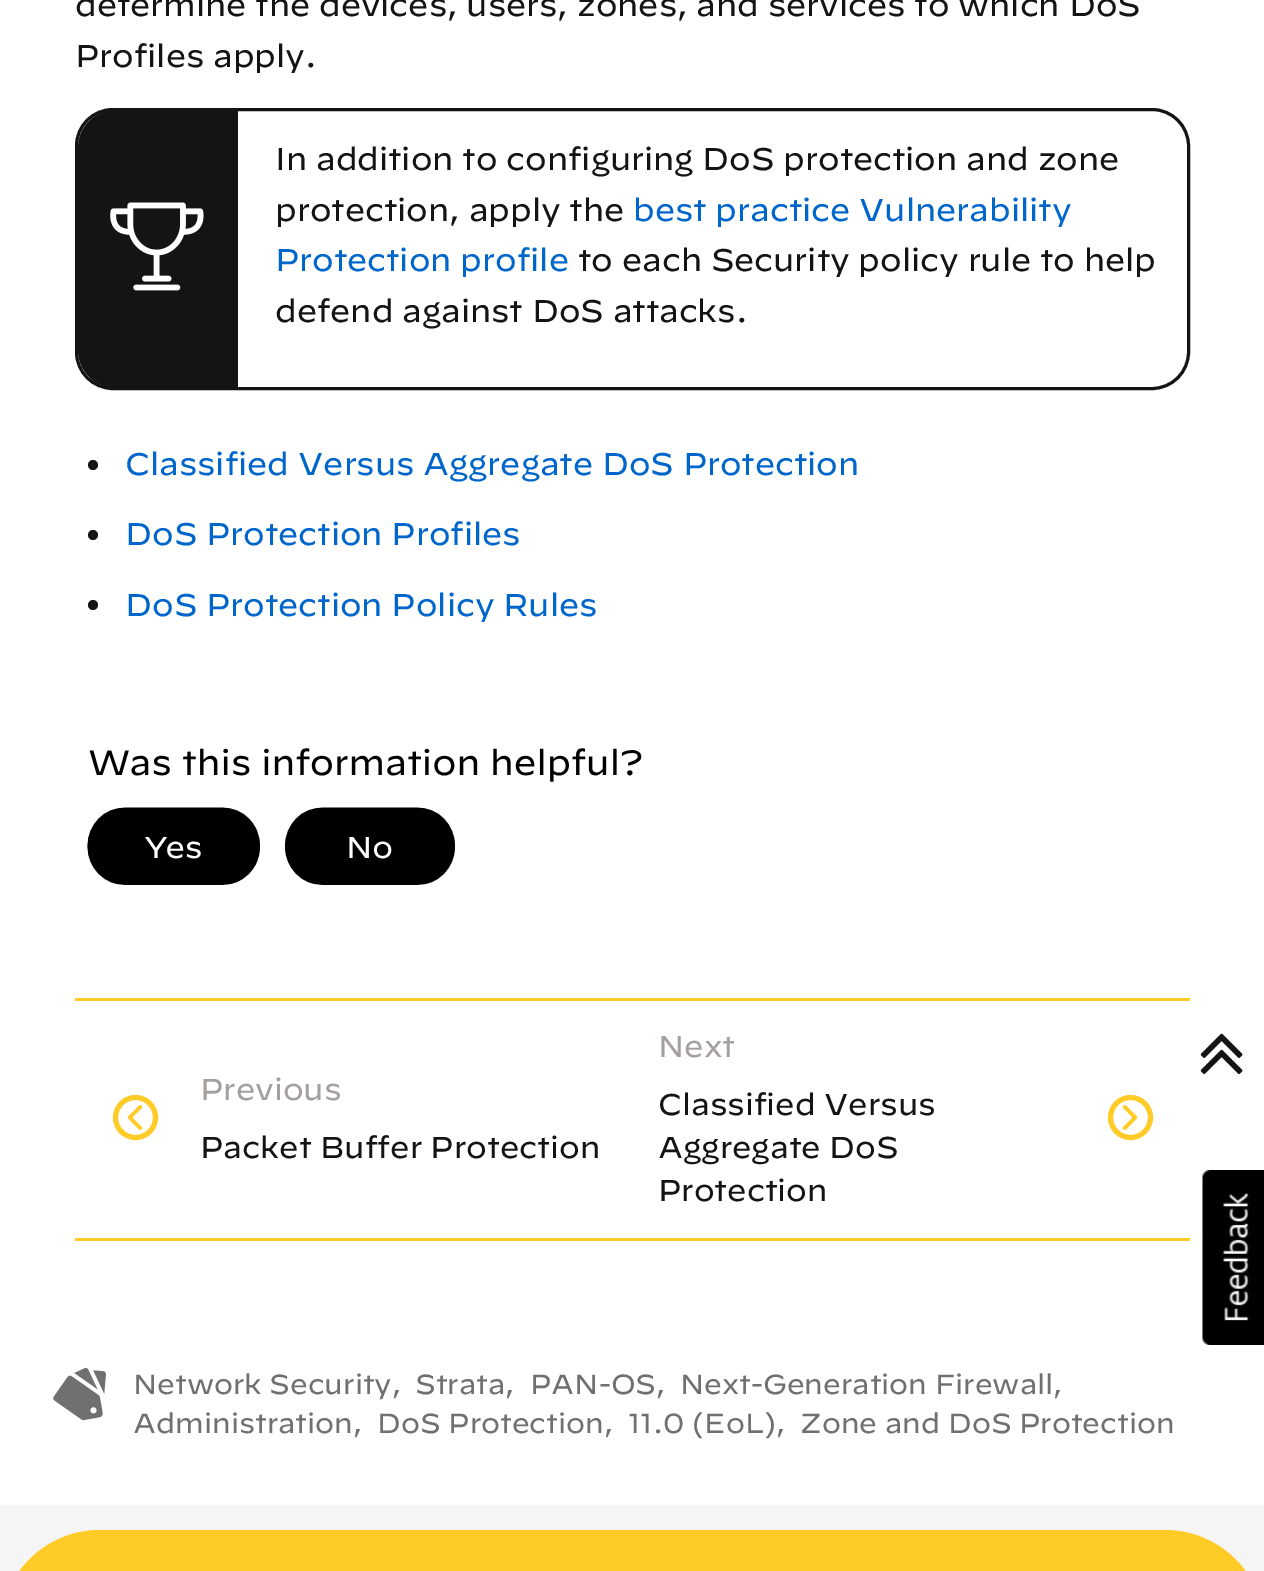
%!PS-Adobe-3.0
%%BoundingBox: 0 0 1264 1571
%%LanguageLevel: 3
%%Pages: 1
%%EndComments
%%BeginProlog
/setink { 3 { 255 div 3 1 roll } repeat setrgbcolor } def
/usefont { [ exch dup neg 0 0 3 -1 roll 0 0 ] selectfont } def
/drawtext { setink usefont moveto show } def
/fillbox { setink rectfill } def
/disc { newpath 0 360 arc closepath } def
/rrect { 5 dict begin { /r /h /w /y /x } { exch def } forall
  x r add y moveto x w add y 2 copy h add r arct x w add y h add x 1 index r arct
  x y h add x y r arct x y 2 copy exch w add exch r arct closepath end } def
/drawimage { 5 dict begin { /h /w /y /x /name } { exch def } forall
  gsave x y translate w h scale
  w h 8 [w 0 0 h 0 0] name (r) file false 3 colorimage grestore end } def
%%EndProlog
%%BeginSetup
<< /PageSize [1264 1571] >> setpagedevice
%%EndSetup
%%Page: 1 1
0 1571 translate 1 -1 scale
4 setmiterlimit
0 0 1264 1571 245 245 245 fillbox
0 1315 1264 190 255 255 255 fillbox
0 0 1264 1313 255 255 255 fillbox
(determine the devices, users, zones, and services to which DoS) 75 16 /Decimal-Regular 31.25 20 20 20 drawtext
(Profiles apply.) 75 67 /Decimal-Regular 31.25 20 20 20 drawtext
3 setlinewidth
76.5 109.5 1112 279 36.5 rrect stroke
116 110 moveto 238 110 lineto 238 388 lineto 116 388 lineto 95 388 78 371 78 350 curveto 78 148 lineto 78 127 95 110 116 110 curveto closepath fill
(assets/img1.rgb) 110 202 94 89 drawimage
(In addition to configuring DoS protection and zone) 275 170 /Decimal-Regular 31.25 20 20 20 drawtext
(protection, apply the) 275 221 /Decimal-Regular 31.25 20 20 20 drawtext
(best practice Vulnerability) 633 221 /Decimal-Regular 31.25 0 102 204 drawtext
(Protection profile) 275 271 /Decimal-Regular 31.25 0 102 204 drawtext
(to each Security policy rule to help) 578 271 /Decimal-Regular 31.25 20 20 20 drawtext
(defend against DoS attacks.) 275 322 /Decimal-Regular 31.25 20 20 20 drawtext
93 465 5 disc fill
(Classified Versus Aggregate DoS Protection) 125 475 /Decimal-Regular 31.25 0 102 204 drawtext
20 20 20 setink
93 535 5 disc fill
(DoS Protection Profiles) 125 545 /Decimal-Regular 31.25 0 102 204 drawtext
20 20 20 setink
93 605 5 disc fill
(DoS Protection Policy Rules) 125 616 /Decimal-Regular 31.25 0 102 204 drawtext
(assets/img2.rgb) 87 748 555 137 drawimage
75 998 1115 3 255 203 38 fillbox
5 setlinewidth
135.5 1117.5 20 disc stroke
(assets/img3.rgb) 127 1105 16 25 drawimage
(Previous) 200 1100 /Decimal-Regular 30 165 160 157 drawtext
(Packet Buffer Protection) 200 1158 /Decimal-Regular 30 20 20 20 drawtext
(Next) 658 1057 /Decimal-Regular 30 165 160 157 drawtext
(Classified Versus) 658 1115 /Decimal-Regular 30 20 20 20 drawtext
(Aggregate DoS) 658 1158 /Decimal-Regular 30 20 20 20 drawtext
(Protection) 658 1201 /Decimal-Regular 30 20 20 20 drawtext
255 203 38 setink
1130.5 1117.5 20 disc stroke
(assets/img4.rgb) 1122 1105 16 25 drawimage
75 1238 1115 3 255 203 38 fillbox
0 1313 1203 2 255 255 255 fillbox
(assets/img5.rgb) 53 1367 53 54 drawimage
(Network Security,) 133 1394 /Decimal-Regular 27.5 112 112 112 drawtext
(Strata,) 415 1394 /Decimal-Regular 27.5 112 112 112 drawtext
(PAN-OS,) 530 1394 /Decimal-Regular 27.5 112 112 112 drawtext
(Next-Generation Firewall,) 680 1394 /Decimal-Regular 27.5 112 112 112 drawtext
(Administration,) 133 1433 /Decimal-Regular 27.5 112 112 112 drawtext
(DoS Protection,) 377 1433 /Decimal-Regular 27.5 112 112 112 drawtext
(11.0 \(EoL\),) 628 1433 /Decimal-Regular 27.5 112 112 112 drawtext
(Zone and DoS Protection) 800 1433 /Decimal-Regular 27.5 112 112 112 drawtext
255 203 38 setink
100 1530 moveto 1165 1530 lineto 1220 1530 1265 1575 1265 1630 curveto 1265 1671 lineto 0 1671 lineto 0 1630 lineto 0 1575 45 1530 100 1530 curveto closepath fill
(assets/img6.rgb) 1200 1033 43 42 drawimage
(assets/img7.rgb) 1202 1170 62 175 drawimage
showpage
%%EOF
